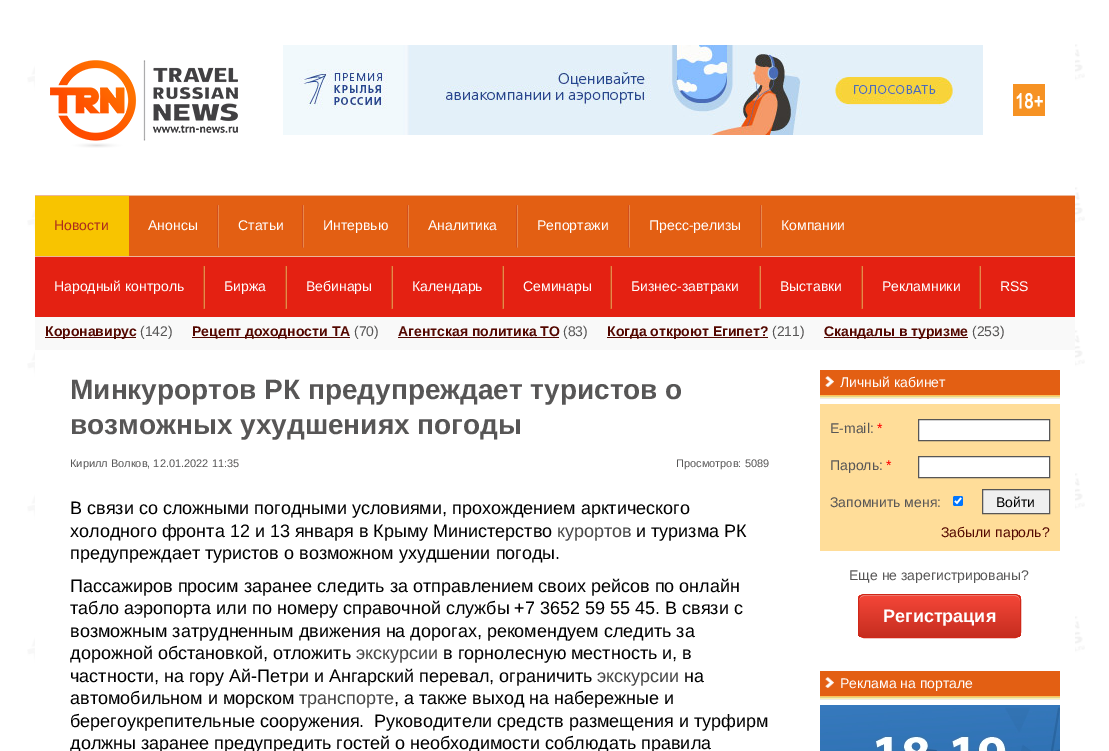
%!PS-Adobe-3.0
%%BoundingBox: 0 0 1109 751
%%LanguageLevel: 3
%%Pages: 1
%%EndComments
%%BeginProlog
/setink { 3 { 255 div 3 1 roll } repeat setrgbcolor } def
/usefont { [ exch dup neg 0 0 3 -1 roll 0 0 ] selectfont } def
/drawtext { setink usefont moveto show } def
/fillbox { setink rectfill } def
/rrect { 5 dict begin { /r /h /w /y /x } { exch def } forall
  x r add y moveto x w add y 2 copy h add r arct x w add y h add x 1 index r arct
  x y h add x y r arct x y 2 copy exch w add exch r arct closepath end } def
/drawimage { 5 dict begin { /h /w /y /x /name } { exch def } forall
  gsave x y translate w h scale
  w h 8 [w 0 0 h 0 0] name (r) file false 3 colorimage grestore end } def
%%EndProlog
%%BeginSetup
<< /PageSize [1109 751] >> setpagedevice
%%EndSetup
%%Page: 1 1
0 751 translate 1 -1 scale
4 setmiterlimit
0 0 1109 751 255 255 255 fillbox
(assets/img1.rgb) 27 38 1058 638 drawimage
35 38 1040 638 255 255 255 fillbox
(assets/img2.rgb) 50 60 188 88 drawimage
(assets/img3.rgb) 283 45 700 90 drawimage
(assets/img4.rgb) 1013 84 32 32 drawimage
129 196 946 60 227 95 19 fillbox
35 195 1040 1 236 183 153 fillbox
35 196 94 60 248 196 0 fillbox
(Новости) 54 230 /LiberationSans-Regular 14 171 43 31 drawtext
(assets/img5.rgb) 217 205 2 43 drawimage
(Анонсы) 148 230 /LiberationSans-Regular 14 255 255 255 drawtext
(assets/img5.rgb) 302 205 2 43 drawimage
(Статьи) 238 230 /LiberationSans-Regular 14 255 255 255 drawtext
(assets/img5.rgb) 407 205 2 43 drawimage
(Интервью) 323 230 /LiberationSans-Regular 14 255 255 255 drawtext
(assets/img5.rgb) 516 205 2 43 drawimage
(Аналитика) 428 230 /LiberationSans-Regular 14 255 255 255 drawtext
(assets/img5.rgb) 628 205 2 43 drawimage
(Репортажи) 537 230 /LiberationSans-Regular 14 255 255 255 drawtext
(assets/img5.rgb) 760 205 2 43 drawimage
(Пресс-релизы) 649 230 /LiberationSans-Regular 14 255 255 255 drawtext
(Компании) 781 230 /LiberationSans-Regular 14 255 255 255 drawtext
35 257 1040 60 228 33 18 fillbox
35 256 1040 1 236 183 153 fillbox
(assets/img5.rgb) 203 266 2 43 drawimage
(Народный контроль) 54 291 /LiberationSans-Regular 14 255 255 255 drawtext
(assets/img5.rgb) 285 266 2 43 drawimage
(Биржа) 224 291 /LiberationSans-Regular 14 255 255 255 drawtext
(assets/img5.rgb) 391 266 2 43 drawimage
(Вебинары) 306 291 /LiberationSans-Regular 14 255 255 255 drawtext
(assets/img5.rgb) 502 266 2 43 drawimage
(Календарь) 412 291 /LiberationSans-Regular 14 255 255 255 drawtext
(assets/img5.rgb) 610 266 2 43 drawimage
(Семинары) 523 291 /LiberationSans-Regular 14 255 255 255 drawtext
(assets/img5.rgb) 759 266 2 43 drawimage
(Бизнес-завтраки) 631 291 /LiberationSans-Regular 14 255 255 255 drawtext
(assets/img5.rgb) 861 266 2 43 drawimage
(Выставки) 780 291 /LiberationSans-Regular 14 255 255 255 drawtext
(assets/img5.rgb) 979 266 2 43 drawimage
(Рекламники) 882 291 /LiberationSans-Regular 14 255 255 255 drawtext
(RSS) 1000 291 /LiberationSans-Regular 14 255 255 255 drawtext
35 317 1040 33 249 249 249 fillbox
45 337 91 1 83 7 0 fillbox
(Коронавирус) 45 336 /LiberationSans-Bold 14 83 7 0 drawtext
(\(142\)) 140 336 /LiberationSans-Regular 14 87 86 86 drawtext
192 337 158 1 83 7 0 fillbox
(Рецепт доходности ТА) 192 336 /LiberationSans-Bold 14 83 7 0 drawtext
(\(70\)) 354 336 /LiberationSans-Regular 14 87 86 86 drawtext
(Агентская политика ТО) 398 336 /LiberationSans-Bold 14 83 7 0 drawtext
398 337 161 1 83 7 0 fillbox
(\(83\)) 563 336 /LiberationSans-Regular 14 87 86 86 drawtext
607 337 161 1 83 7 0 fillbox
(Когда откроют Египет?) 607 336 /LiberationSans-Bold 14 83 7 0 drawtext
(\(211\)) 772 336 /LiberationSans-Regular 14 87 86 86 drawtext
824 337 144 1 83 7 0 fillbox
(Скандалы в туризме) 824 336 /LiberationSans-Bold 14 83 7 0 drawtext
(\(253\)) 972 336 /LiberationSans-Regular 14 87 86 86 drawtext
(Минкурортов РК предупреждает туристов о) 70 399 /LiberationSans-Bold 28 87 86 86 drawtext
(возможных ухудшениях погоды) 70 434 /LiberationSans-Bold 28 87 86 86 drawtext
(Кирилл Волков, 12.01.2022 11:35) 70 467 /LiberationSans-Regular 11 87 86 86 drawtext
(Просмотров: 5089) 676 467 /LiberationSans-Regular 11 87 86 86 drawtext
(В связи со сложными погодными условиями, прохождением арктического) 70 514 /LiberationSans-Regular 18 0 0 0 drawtext
(холодного фронта 12 и 13 января в Крыму Министерство) 70 537 /LiberationSans-Regular 18 0 0 0 drawtext
(курортов) 557 537 /LiberationSans-Regular 18 69 69 69 drawtext
(и туризма РК) 636 537 /LiberationSans-Regular 18 0 0 0 drawtext
(предупреждает туристов о возможном ухудшении погоды.) 70 559 /LiberationSans-Regular 18 0 0 0 drawtext
(Пассажиров просим заранее следить за отправлением своих рейсов по онлайн) 70 592 /LiberationSans-Regular 18 0 0 0 drawtext
(табло аэропорта или по номеру справочной службы +7 3652 59 55 45. В связи с) 70 614 /LiberationSans-Regular 18 0 0 0 drawtext
(возможным затрудненным движения на дорогах, рекомендуем следить за) 70 637 /LiberationSans-Regular 18 0 0 0 drawtext
(дорожной обстановкой, отложить) 70 659 /LiberationSans-Regular 18 0 0 0 drawtext
(экскурсии) 356 659 /LiberationSans-Regular 18 69 69 69 drawtext
(в горнолесную местность и, в) 443 659 /LiberationSans-Regular 18 0 0 0 drawtext
(частности, на гору Ай-Петри и Ангарский перевал, ограничить) 70 682 /LiberationSans-Regular 18 0 0 0 drawtext
(экскурсии) 597 682 /LiberationSans-Regular 18 69 69 69 drawtext
(на) 684 682 /LiberationSans-Regular 18 0 0 0 drawtext
(автомобильном и морском) 70 704 /LiberationSans-Regular 18 0 0 0 drawtext
(транспорте) 299 704 /LiberationSans-Regular 18 69 69 69 drawtext
(, а также выход на набережные и) 394 704 /LiberationSans-Regular 18 0 0 0 drawtext
(берегоукрепительные сооружения.  Руководители средств размещения и турфирм) 70 727 /LiberationSans-Regular 18 0 0 0 drawtext
(должны заранее предупредить гостей о необходимости соблюдать правила) 70 749 /LiberationSans-Regular 18 0 0 0 drawtext
(assets/img6.rgb) 820 370 240 29 drawimage
(assets/img7.rgb) 825 376 9 11 drawimage
(Личный кабинет) 840 387 /LiberationSans-Regular 14 255 255 255 drawtext
820 404 240 147 255 221 153 fillbox
(E-mail:) 830 433 /LiberationSans-Regular 14 87 86 86 drawtext
(*) 877 433 /LiberationSans-Regular 14 255 0 0 drawtext
255 255 255 setink
918.5 419.5 moveto 1049.5 419.5 lineto 1049.5 440.5 lineto 918.5 440.5 lineto closepath gsave fill grestore
87 86 86 setink
stroke
(Пароль:) 830 470 /LiberationSans-Regular 14 87 86 86 drawtext
(*) 886 470 /LiberationSans-Regular 14 255 0 0 drawtext
255 255 255 setink
918.5 456.5 moveto 1049.5 456.5 lineto 1049.5 477.5 lineto 918.5 477.5 lineto closepath gsave fill grestore
87 86 86 setink
stroke
(Запомнить меня:) 830 507 /LiberationSans-Regular 14 87 86 86 drawtext
0 117 255 setink
953 496 10 10 2 rrect fill
255 255 255 setink
1.6 setlinewidth
955 501 moveto 957 503 lineto 961 498 lineto stroke
239 239 239 setink
982.5 489.5 moveto 1049.5 489.5 lineto 1049.5 513.5 lineto 982.5 513.5 lineto closepath gsave fill grestore
87 86 86 setink
1 setlinewidth
stroke
(Войти) 996 507 /LiberationSans-Regular 14 0 0 0 drawtext
(Забыли пароль?) 941 537 /LiberationSans-Regular 14 83 7 0 drawtext
(Еще не зарегистрированы?) 849 580 /LiberationSans-Regular 14 87 86 86 drawtext
gsave
858 594 163 44 6 rrect clip newpath
gsave 858 595 moveto 1021 595 lineto 1021 637 lineto 858 637 lineto closepath clip newpath
<< /ShadingType 2 /ColorSpace /DeviceRGB /Coords [940 595 940 637] /Extend [true true] /Function << /FunctionType 3 /Domain [0 1] /Functions [<< /FunctionType 2 /Domain [0 1] /C0 [0.949 0.271 0.216] /C1 [0.949 0.271 0.216] /N 1 >> << /FunctionType 2 /Domain [0 1] /C0 [0.949 0.271 0.216] /C1 [0.776 0.176 0.122] /N 1 >>] /Bounds [0.05] /Encode [0 1 0 1] >> >> shfill grestore
grestore
245 151 142 setink
864 596 moveto 1015 596 lineto 1018 596 1020 598 1020 601 curveto 1020 600 lineto 1020 597 1018 595 1015 595 curveto 864 595 lineto 861 595 859 597 859 600 curveto 859 601 lineto 859 598 861 596 864 596 curveto closepath fill
208 39 24 setink
858.5 594.5 162 43 5.5 rrect stroke
(Регистрация) 883 622 /LiberationSans-Bold 18 255 255 255 drawtext
(assets/img6.rgb) 820 671 240 29 drawimage
(assets/img7.rgb) 825 677 9 11 drawimage
(Реклама на портале) 840 688 /LiberationSans-Regular 14 255 255 255 drawtext
(assets/img8.rgb) 820 705 240 46 drawimage
showpage
%%EOF
